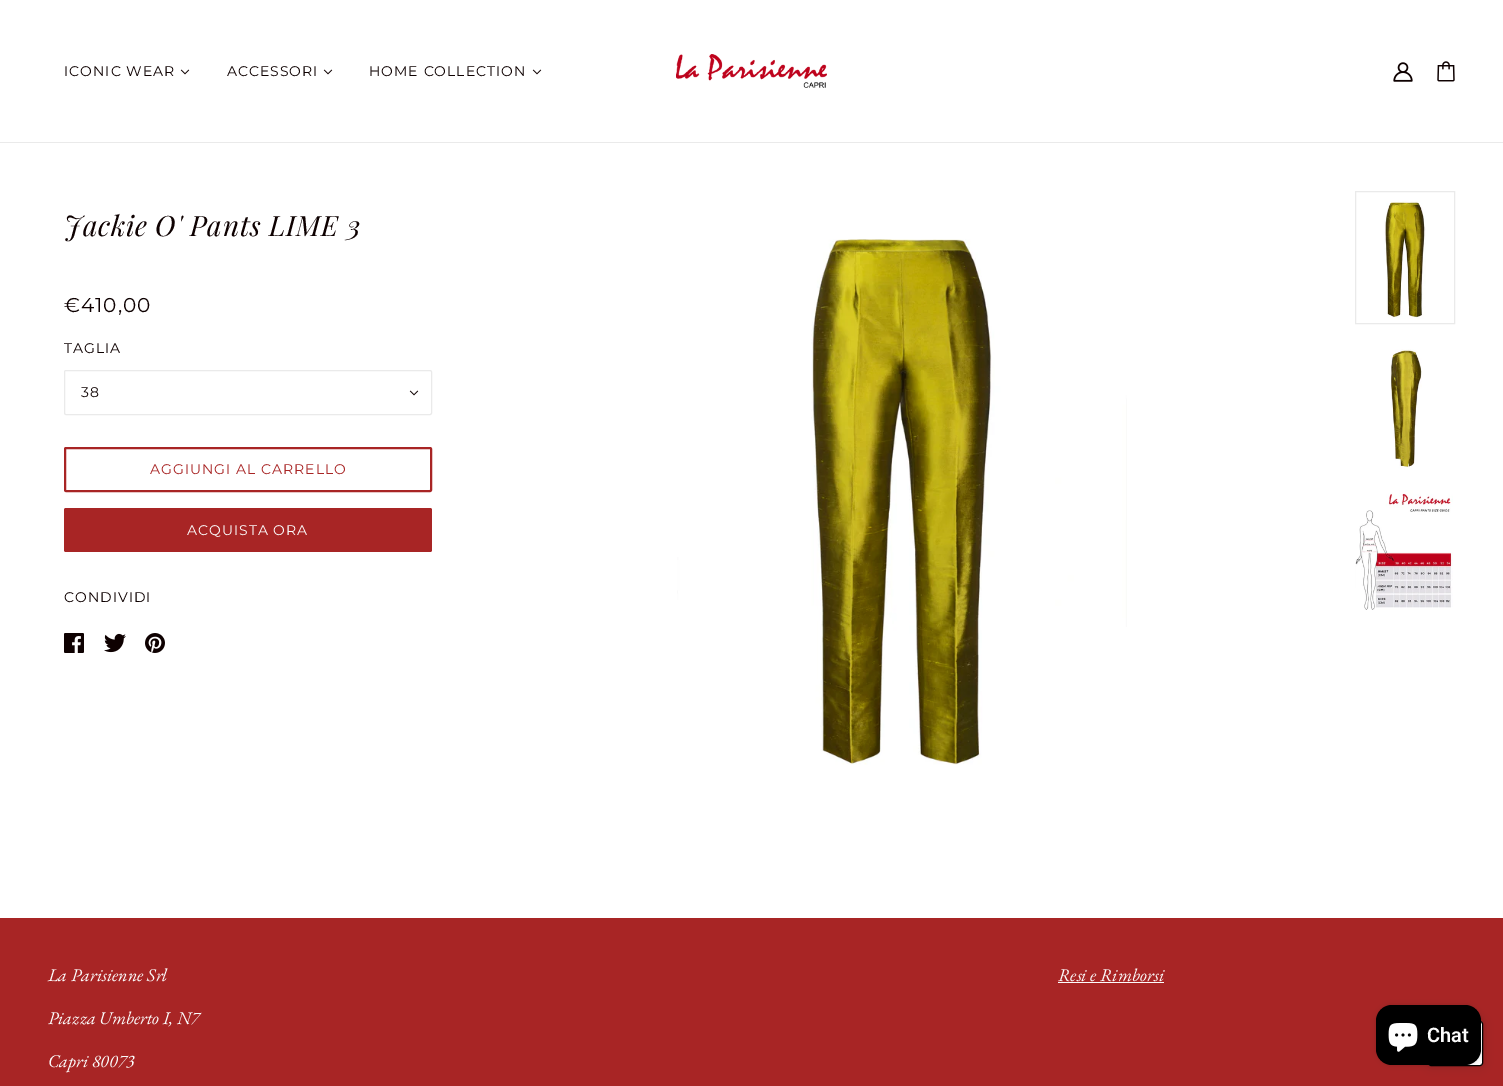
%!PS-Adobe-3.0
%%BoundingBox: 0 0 1503 1086
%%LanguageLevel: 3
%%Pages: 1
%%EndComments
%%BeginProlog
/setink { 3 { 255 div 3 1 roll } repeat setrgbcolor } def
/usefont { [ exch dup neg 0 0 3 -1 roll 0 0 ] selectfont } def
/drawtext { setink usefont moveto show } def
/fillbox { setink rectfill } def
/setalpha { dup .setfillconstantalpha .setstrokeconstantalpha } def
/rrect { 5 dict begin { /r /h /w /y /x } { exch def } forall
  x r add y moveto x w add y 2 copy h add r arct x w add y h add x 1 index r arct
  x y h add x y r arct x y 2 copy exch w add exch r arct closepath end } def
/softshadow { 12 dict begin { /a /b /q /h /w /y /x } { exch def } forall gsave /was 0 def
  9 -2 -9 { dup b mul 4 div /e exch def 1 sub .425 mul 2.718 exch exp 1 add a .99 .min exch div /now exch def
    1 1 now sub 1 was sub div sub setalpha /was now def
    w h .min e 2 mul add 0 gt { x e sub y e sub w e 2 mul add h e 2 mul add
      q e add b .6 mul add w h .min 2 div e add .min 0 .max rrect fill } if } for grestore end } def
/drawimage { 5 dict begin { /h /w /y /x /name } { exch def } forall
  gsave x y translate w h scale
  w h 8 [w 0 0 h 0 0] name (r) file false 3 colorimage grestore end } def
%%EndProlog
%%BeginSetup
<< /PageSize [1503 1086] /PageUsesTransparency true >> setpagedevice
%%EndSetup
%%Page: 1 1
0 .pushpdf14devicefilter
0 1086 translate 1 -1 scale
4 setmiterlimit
0 0 1503 1086 255 255 255 fillbox
0 142 1503 1 234 234 234 fillbox
/Montserrat-Regular 14 usefont
14 1 1 setink
64 76 moveto 1 0 (ICONIC WEAR) ashow
(assets/img1.rgb) 180 69 10 6 drawimage
227 76 moveto 1 0 (ACCESSORI) ashow
(assets/img1.rgb) 323 69 10 6 drawimage
369 76 moveto 1 0 (HOME COLLECTION) ashow
(assets/img1.rgb) 532 69 10 6 drawimage
(assets/img2.rgb) 676 54 151 34 drawimage
(assets/img3.rgb) 1393 62 20 20 drawimage
(assets/img4.rgb) 1437 61 18 21 drawimage
/PlayfairDisplay-Italic 28 usefont
64 236 moveto 0.7 0 (Jackie O' Pants LIME 3) ashow
/Montserrat-Regular 20 usefont
64 312 moveto 1 0 (€410,00) ashow
/Montserrat-Regular 14 usefont
64 353 moveto 1 0 (TAGLIA) ashow
234 234 234 setink
64.5 370.5 367 44 1.5 rrect stroke
14 1 1 setink
81 397 moveto 1 0 (38) ashow
(assets/img1.rgb) 409 390 10 6 drawimage
168 37 37 setink
2 setlinewidth
65 448 366 43 1 rrect stroke
150 474 moveto 1 0 (AGGIUNGI AL CARRELLO) ashow
64 508 368 44 2 rrect fill
252 252 252 setink
187 535 moveto 1 0 (ACQUISTA ORA) ashow
14 1 1 setink
64 602 moveto 1 0 (CONDIVIDI) ashow
(assets/img5.rgb) 64 633 20 20 drawimage
(assets/img6.rgb) 104 633 22 20 drawimage
(assets/img7.rgb) 145 633 20 20 drawimage
(assets/img8.rgb) 677 239 450 526 drawimage
234 234 234 setink
1 setlinewidth
1355.5 191.5 99 132 rectstroke
(assets/img9.rgb) 1384 201 42 118 drawimage
(assets/img10.rgb) 1390 349 32 121 drawimage
(assets/img11.rgb) 1355 490 98 120 drawimage
0 918 1503 168 168 37 37 fillbox
(La Parisienne Srl) 48 981 /EBGaramond-Italic 18 252 252 252 drawtext
(Piazza Umberto I, N7) 48 1024 /EBGaramond-Italic 18 252 252 252 drawtext
(Capri 80073) 48 1067 /EBGaramond-Italic 18 252 252 252 drawtext
(Resi e Rimborsi) 1058 981 /EBGaramond-Italic 18 252 252 252 drawtext
1058 982 106 1 252 252 252 fillbox
0 0 0 setink
1428 1021 55 45 3 5 0.15 softshadow
255 255 255 setink
1428.5 1021.5 54 44 2.5 rrect gsave fill grestore
0 0 0 setink
stroke
1376 1005 105 60 16 2.5 0.15 softshadow
1376 1005 105 60 16 rrect fill
(assets/img12.rgb) 1388 1023 30 29 drawimage
(Chat) 1427 1042 /Roboto-SemiBold 20 252 252 252 drawtext
.poppdf14devicefilter showpage
%%EOF
